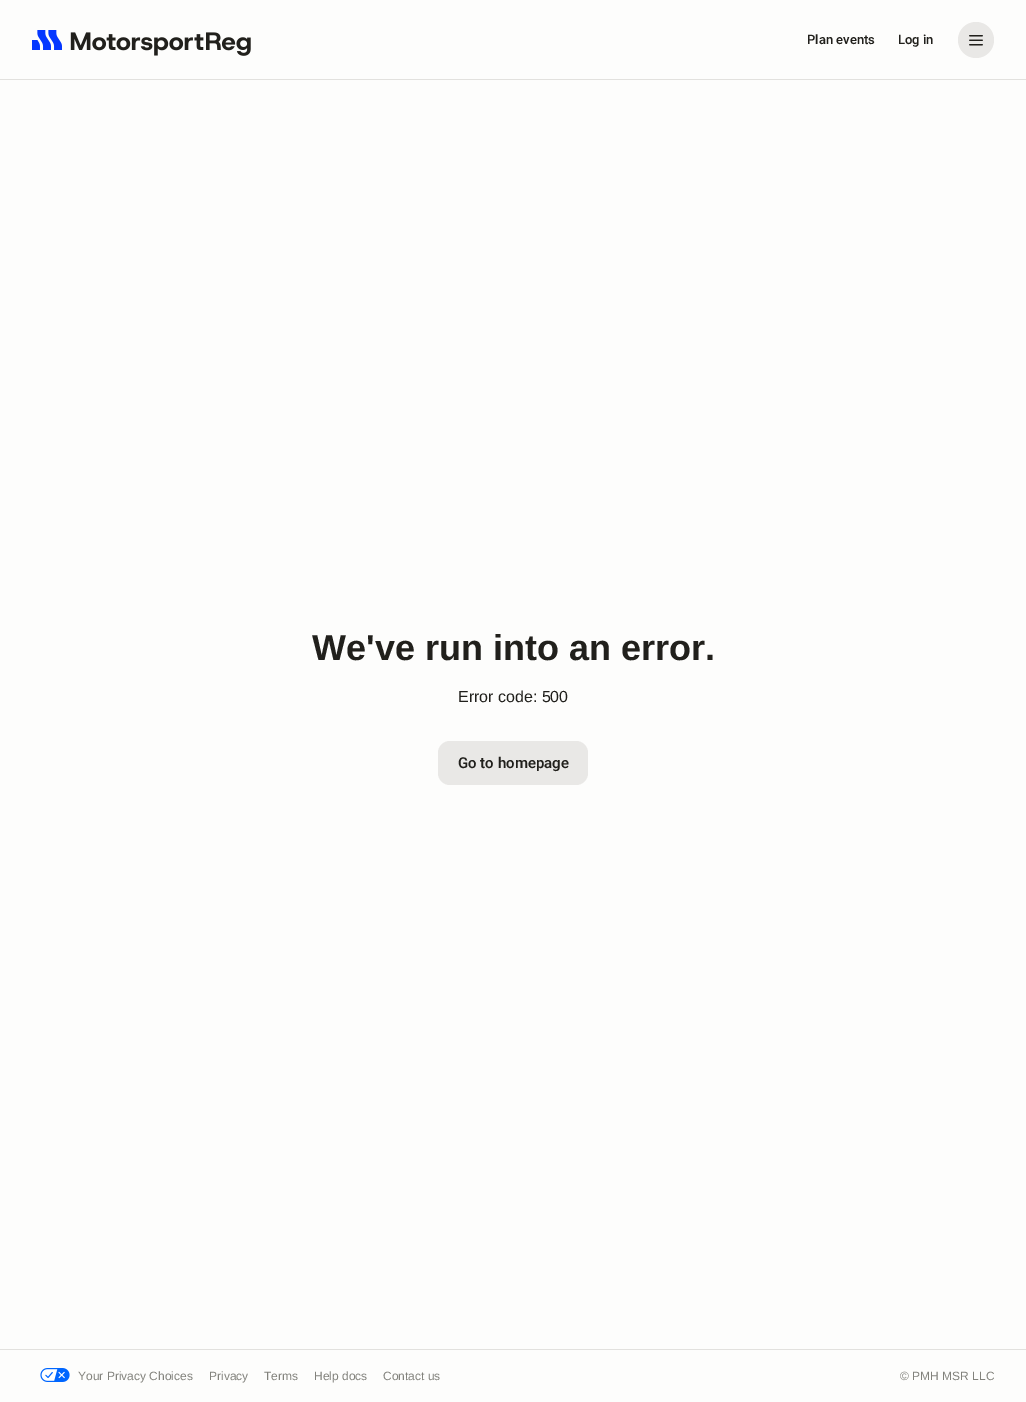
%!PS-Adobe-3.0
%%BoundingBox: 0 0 1026 1402
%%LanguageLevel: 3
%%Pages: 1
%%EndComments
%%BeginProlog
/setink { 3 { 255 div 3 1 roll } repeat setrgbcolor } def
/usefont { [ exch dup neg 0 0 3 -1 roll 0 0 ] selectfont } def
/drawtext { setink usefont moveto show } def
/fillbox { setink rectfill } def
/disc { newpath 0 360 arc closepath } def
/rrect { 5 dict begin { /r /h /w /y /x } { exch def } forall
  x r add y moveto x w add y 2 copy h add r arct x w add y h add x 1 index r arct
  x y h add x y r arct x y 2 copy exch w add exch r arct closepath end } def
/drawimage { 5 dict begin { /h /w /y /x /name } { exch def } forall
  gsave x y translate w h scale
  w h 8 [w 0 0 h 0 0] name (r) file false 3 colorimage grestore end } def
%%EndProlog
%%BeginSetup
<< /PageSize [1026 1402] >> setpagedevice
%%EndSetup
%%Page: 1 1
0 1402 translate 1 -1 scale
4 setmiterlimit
0 0 1026 1402 253 253 252 fillbox
0 79 1026 1 226 225 222 fillbox
(assets/img1.rgb) 32 30 219 26 drawimage
(Plan events) 807 44 /Roboto-Medium 13 33 32 28 drawtext
(Log in) 898 44 /Roboto-Medium 13 33 32 28 drawtext
233 232 230 setink
976 40 18 disc fill
(assets/img2.rgb) 969 35 14 11 drawimage
(We've run into an error.) 312 660 /LiberationSans-Bold 36 33 32 28 drawtext
(Error code: 500) 458 702 /LiberationSans-Regular 16 33 32 28 drawtext
233 232 230 setink
438 741 150 44 12 rrect fill
(Go to homepage) 458 768 /Roboto-Medium 15 33 32 28 drawtext
0 1349 1026 1 226 225 222 fillbox
(assets/img3.rgb) 40 1368 30 14 drawimage
(Your Privacy Choices) 78 1380 /LiberationSans-Regular 12 130 130 124 drawtext
(Privacy) 209 1380 /LiberationSans-Regular 12 130 130 124 drawtext
(Terms) 264 1380 /LiberationSans-Regular 12 130 130 124 drawtext
(Help docs) 314 1380 /LiberationSans-Regular 12 130 130 124 drawtext
(Contact us) 383 1380 /LiberationSans-Regular 12 130 130 124 drawtext
(© PMH MSR LLC) 900 1380 /LiberationSans-Regular 12 130 130 124 drawtext
showpage
%%EOF
